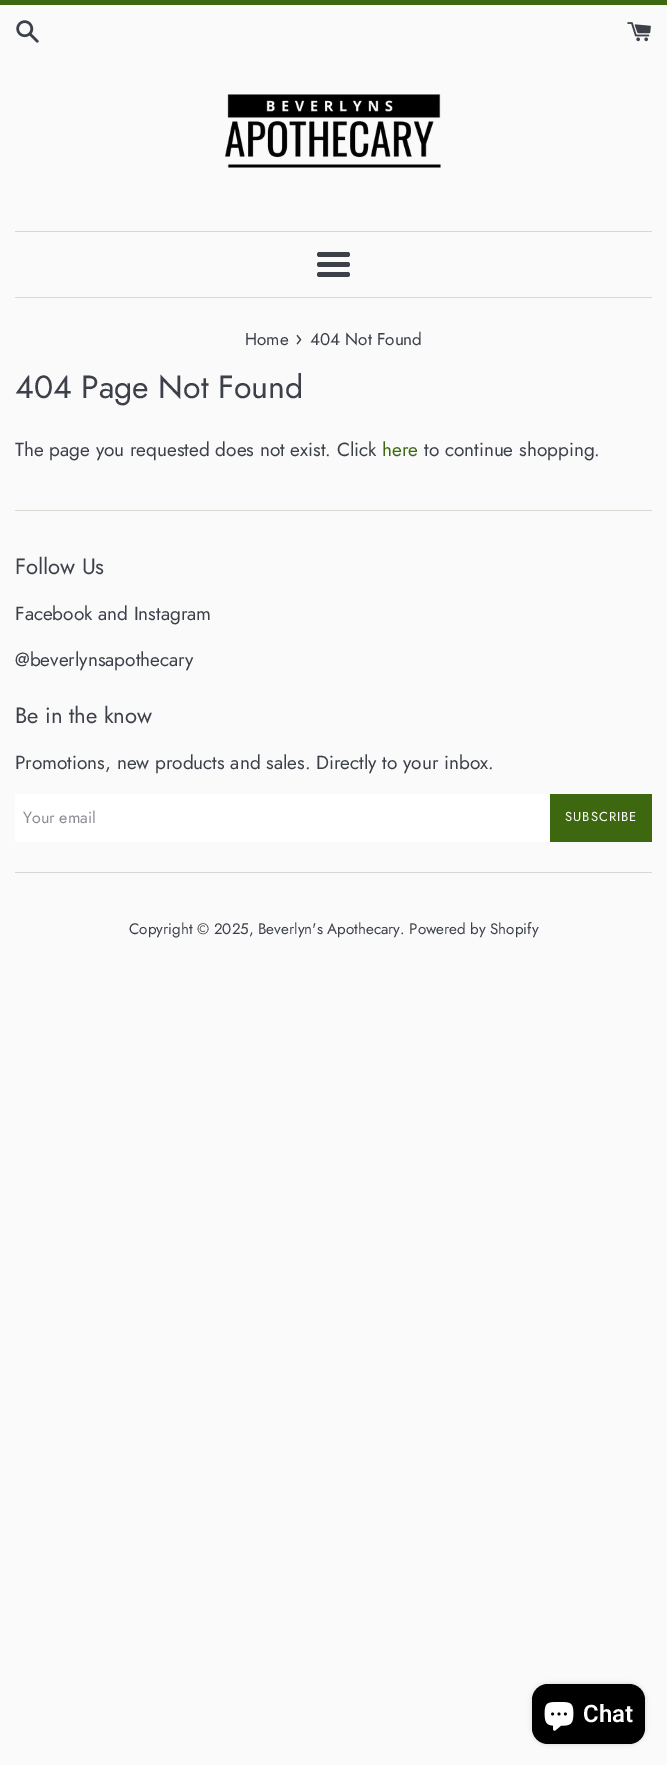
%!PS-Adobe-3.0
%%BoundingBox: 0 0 667 1765
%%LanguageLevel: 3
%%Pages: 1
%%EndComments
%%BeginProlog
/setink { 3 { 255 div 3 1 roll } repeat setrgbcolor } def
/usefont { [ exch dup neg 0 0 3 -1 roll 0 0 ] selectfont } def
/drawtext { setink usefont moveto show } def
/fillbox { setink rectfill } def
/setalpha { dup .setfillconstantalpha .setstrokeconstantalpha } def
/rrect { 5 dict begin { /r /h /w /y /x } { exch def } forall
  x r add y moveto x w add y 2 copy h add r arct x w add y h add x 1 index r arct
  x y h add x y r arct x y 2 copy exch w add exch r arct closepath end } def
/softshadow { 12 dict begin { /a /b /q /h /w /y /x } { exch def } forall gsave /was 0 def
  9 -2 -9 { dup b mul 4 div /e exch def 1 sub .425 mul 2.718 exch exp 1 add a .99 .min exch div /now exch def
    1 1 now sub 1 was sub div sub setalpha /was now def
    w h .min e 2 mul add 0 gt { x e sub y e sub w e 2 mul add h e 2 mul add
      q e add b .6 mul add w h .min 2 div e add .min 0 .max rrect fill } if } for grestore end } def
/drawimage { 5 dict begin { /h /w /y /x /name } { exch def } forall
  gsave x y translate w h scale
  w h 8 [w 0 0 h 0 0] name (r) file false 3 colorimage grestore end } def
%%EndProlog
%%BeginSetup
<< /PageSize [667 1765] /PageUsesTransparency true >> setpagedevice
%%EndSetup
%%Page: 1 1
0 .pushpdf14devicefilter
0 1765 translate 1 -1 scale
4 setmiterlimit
0 0 667 1765 250 250 250 fillbox
0 0 667 5 61 104 15 fillbox
(assets/img1.rgb) 16 20 23 23 drawimage
(assets/img2.rgb) 627 22 24 20 drawimage
(assets/img3.rgb) 225 94 216 74 drawimage
15 231 637 1 215 216 210 fillbox
60 64 73 setink
317 252 33 5 2.5 rrect fill
317 262 33 5 2.5 rrect fill
317 272 33 5 2.5 rrect fill
15 297 637 1 215 216 210 fillbox
(Home) 245 345 /Jost-Regular 17 60 64 73 drawtext
(›) 295 345 /Jost-Regular 21 60 64 73 drawtext
(404 Not Found) 310 345 /Jost-Regular 17 60 64 73 drawtext
(404 Page Not Found) 15 398 /Jost-Regular 32 60 64 73 drawtext
(The page you requested does not exist. Click) 15 456 /Jost-Regular 19 60 64 73 drawtext
(here) 382 456 /Jost-Regular 19 61 104 15 drawtext
(to continue shopping.) 424 456 /Jost-Regular 19 60 64 73 drawtext
15 510 637 1 215 216 210 fillbox
(Follow Us) 15 574 /Jost-Regular 22 60 64 73 drawtext
(Facebook and Instagram) 15 620 /Jost-Regular 19 60 64 73 drawtext
(@beverlynsapothecary) 15 666 /Jost-Regular 19 60 64 73 drawtext
(Be in the know) 15 723 /Jost-Regular 22 60 64 73 drawtext
(Promotions, new products and sales. Directly to your inbox.) 15 769 /Jost-Regular 19 60 64 73 drawtext
15 794 535 48 255 255 255 fillbox
(Your email) 23 823 /Jost-Regular 16 138 140 146 drawtext
550 794 102 48 61 104 15 fillbox
/Jost-Regular 13 usefont
255 255 255 setink
565 821 moveto 1 0 (SUBSCRIBE) ashow
15 872 637 1 215 216 210 fillbox
(Copyright © 2025, Beverlyn's Apothecary. Powered by Shopify) 129 934 /Jost-Regular 15.2 60 64 73 drawtext
0 0 0 setink
532 1684 113 60 16 2.5 0.15 softshadow
532 1684 113 60 16 rrect fill
(assets/img4.rgb) 544 1702 30 29 drawimage
(Chat) 583 1722 /Roboto-SemiBold 24 255 255 255 drawtext
.poppdf14devicefilter showpage
%%EOF
